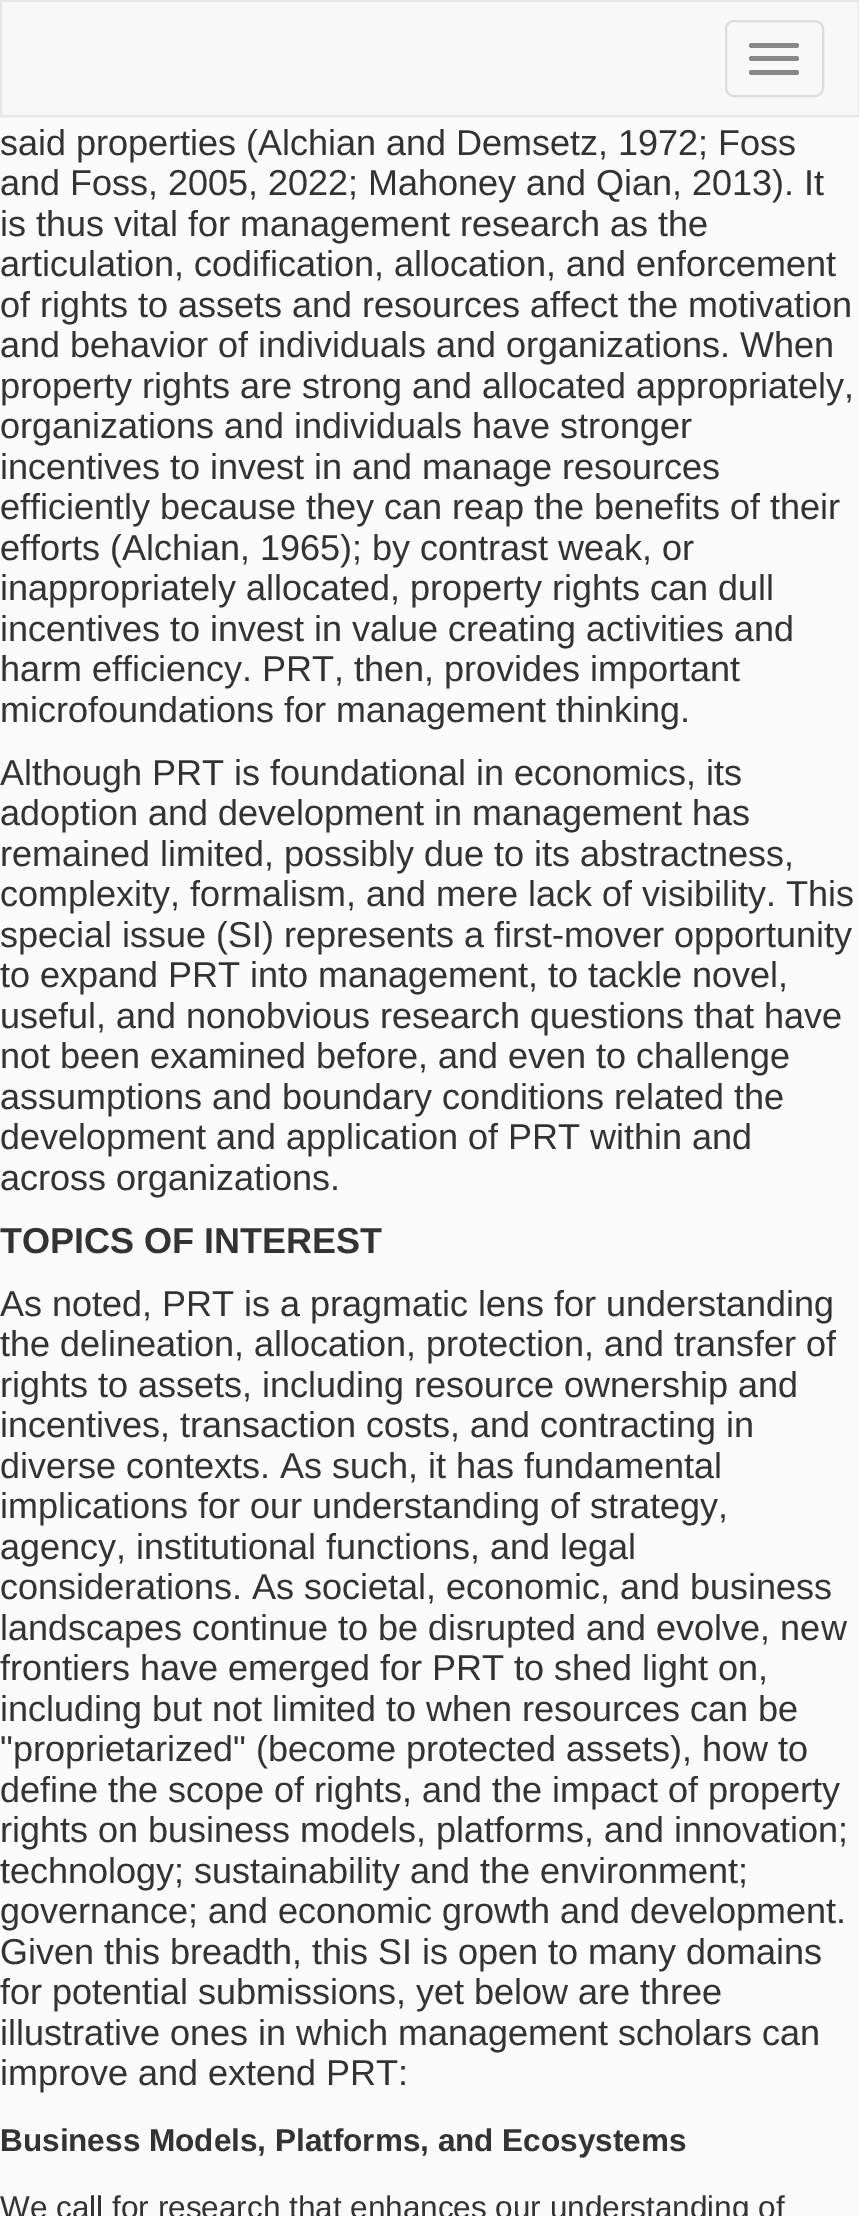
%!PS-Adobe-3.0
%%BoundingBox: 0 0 859 2216
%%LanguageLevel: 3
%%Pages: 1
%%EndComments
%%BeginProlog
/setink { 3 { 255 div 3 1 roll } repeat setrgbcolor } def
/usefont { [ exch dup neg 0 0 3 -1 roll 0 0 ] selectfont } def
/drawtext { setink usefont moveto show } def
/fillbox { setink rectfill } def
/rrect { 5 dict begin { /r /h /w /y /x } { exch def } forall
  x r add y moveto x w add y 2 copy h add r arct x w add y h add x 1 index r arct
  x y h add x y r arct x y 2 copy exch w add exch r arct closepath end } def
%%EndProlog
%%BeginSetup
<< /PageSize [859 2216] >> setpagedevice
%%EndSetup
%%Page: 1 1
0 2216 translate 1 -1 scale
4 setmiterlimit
0 0 859 2216 251 251 251 fillbox
248 248 248 setink
1 1 moveto 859 1 lineto 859 116 lineto 1 116 lineto closepath gsave fill grestore
231 231 231 setink
2 setlinewidth
stroke
221 221 221 setink
726 21 97 75 8 rrect stroke
136 136 136 setink
749 43 50 5 2.5 rrect fill
749 56 50 5 2.5 rrect fill
749 70 50 5 2.5 rrect fill
(said properties \(Alchian and Demsetz, 1972; Foss) 0 155 /LiberationSans-Regular 36 51 51 51 drawtext
(and Foss, 2005, 2022; Mahoney and Qian, 2013\). It) 0 195 /LiberationSans-Regular 36 51 51 51 drawtext
(is thus vital for management research as the) 0 236 /LiberationSans-Regular 36 51 51 51 drawtext
(articulation, codification, allocation, and enforcement) 0 276 /LiberationSans-Regular 36 51 51 51 drawtext
(of rights to assets and resources affect the motivation) 0 317 /LiberationSans-Regular 36 51 51 51 drawtext
(and behavior of individuals and organizations. When) 0 357 /LiberationSans-Regular 36 51 51 51 drawtext
(property rights are strong and allocated appropriately,) 0 398 /LiberationSans-Regular 36 51 51 51 drawtext
(organizations and individuals have stronger) 0 438 /LiberationSans-Regular 36 51 51 51 drawtext
(incentives to invest in and manage resources) 0 479 /LiberationSans-Regular 36 51 51 51 drawtext
(efficiently because they can reap the benefits of their) 0 519 /LiberationSans-Regular 36 51 51 51 drawtext
(efforts \(Alchian, 1965\); by contrast weak, or) 0 560 /LiberationSans-Regular 36 51 51 51 drawtext
(inappropriately allocated, property rights can dull) 0 600 /LiberationSans-Regular 36 51 51 51 drawtext
(incentives to invest in value creating activities and) 0 641 /LiberationSans-Regular 36 51 51 51 drawtext
(harm efficiency. PRT, then, provides important) 0 681 /LiberationSans-Regular 36 51 51 51 drawtext
(microfoundations for management thinking.) 0 722 /LiberationSans-Regular 36 51 51 51 drawtext
(Although PRT is foundational in economics, its) 0 785 /LiberationSans-Regular 36 51 51 51 drawtext
(adoption and development in management has) 0 825 /LiberationSans-Regular 36 51 51 51 drawtext
(remained limited, possibly due to its abstractness,) 0 866 /LiberationSans-Regular 36 51 51 51 drawtext
(complexity, formalism, and mere lack of visibility. This) 0 906 /LiberationSans-Regular 36 51 51 51 drawtext
(special issue \(SI\) represents a first-mover opportunity) 0 947 /LiberationSans-Regular 36 51 51 51 drawtext
(to expand PRT into management, to tackle novel,) 0 987 /LiberationSans-Regular 36 51 51 51 drawtext
(useful, and nonobvious research questions that have) 0 1028 /LiberationSans-Regular 36 51 51 51 drawtext
(not been examined before, and even to challenge) 0 1068 /LiberationSans-Regular 36 51 51 51 drawtext
(assumptions and boundary conditions related the) 0 1109 /LiberationSans-Regular 36 51 51 51 drawtext
(development and application of PRT within and) 0 1149 /LiberationSans-Regular 36 51 51 51 drawtext
(across organizations.) 0 1190 /LiberationSans-Regular 36 51 51 51 drawtext
(TOPICS OF INTEREST) 0 1253 /LiberationSans-Bold 36 51 51 51 drawtext
(As noted, PRT is a pragmatic lens for understanding) 0 1316 /LiberationSans-Regular 36 51 51 51 drawtext
(the delineation, allocation, protection, and transfer of) 0 1356 /LiberationSans-Regular 36 51 51 51 drawtext
(rights to assets, including resource ownership and) 0 1397 /LiberationSans-Regular 36 51 51 51 drawtext
(incentives, transaction costs, and contracting in) 0 1437 /LiberationSans-Regular 36 51 51 51 drawtext
(diverse contexts. As such, it has fundamental) 0 1478 /LiberationSans-Regular 36 51 51 51 drawtext
(implications for our understanding of strategy,) 0 1518 /LiberationSans-Regular 36 51 51 51 drawtext
(agency, institutional functions, and legal) 0 1559 /LiberationSans-Regular 36 51 51 51 drawtext
(considerations. As societal, economic, and business) 0 1599 /LiberationSans-Regular 36 51 51 51 drawtext
(landscapes continue to be disrupted and evolve, new) 0 1640 /LiberationSans-Regular 36 51 51 51 drawtext
(frontiers have emerged for PRT to shed light on,) 0 1680 /LiberationSans-Regular 36 51 51 51 drawtext
(including but not limited to when resources can be) 0 1721 /LiberationSans-Regular 36 51 51 51 drawtext
("proprietarized" \(become protected assets\), how to) 0 1761 /LiberationSans-Regular 36 51 51 51 drawtext
(define the scope of rights, and the impact of property) 0 1802 /LiberationSans-Regular 36 51 51 51 drawtext
(rights on business models, platforms, and innovation;) 0 1842 /LiberationSans-Regular 36 51 51 51 drawtext
(technology; sustainability and the environment;) 0 1883 /LiberationSans-Regular 36 51 51 51 drawtext
(governance; and economic growth and development.) 0 1923 /LiberationSans-Regular 36 51 51 51 drawtext
(Given this breadth, this SI is open to many domains) 0 1964 /LiberationSans-Regular 36 51 51 51 drawtext
(for potential submissions, yet below are three) 0 2004 /LiberationSans-Regular 36 51 51 51 drawtext
(illustrative ones in which management scholars can) 0 2045 /LiberationSans-Regular 36 51 51 51 drawtext
(improve and extend PRT:) 0 2085 /LiberationSans-Regular 36 51 51 51 drawtext
(Business Models, Platforms, and Ecosystems) 0 2151 /LiberationSans-Bold 31.5 51 51 51 drawtext
(We call for research that enhances our understanding of) 0 2218 /LiberationSans-Regular 31.5 51 51 51 drawtext
showpage
%%EOF
